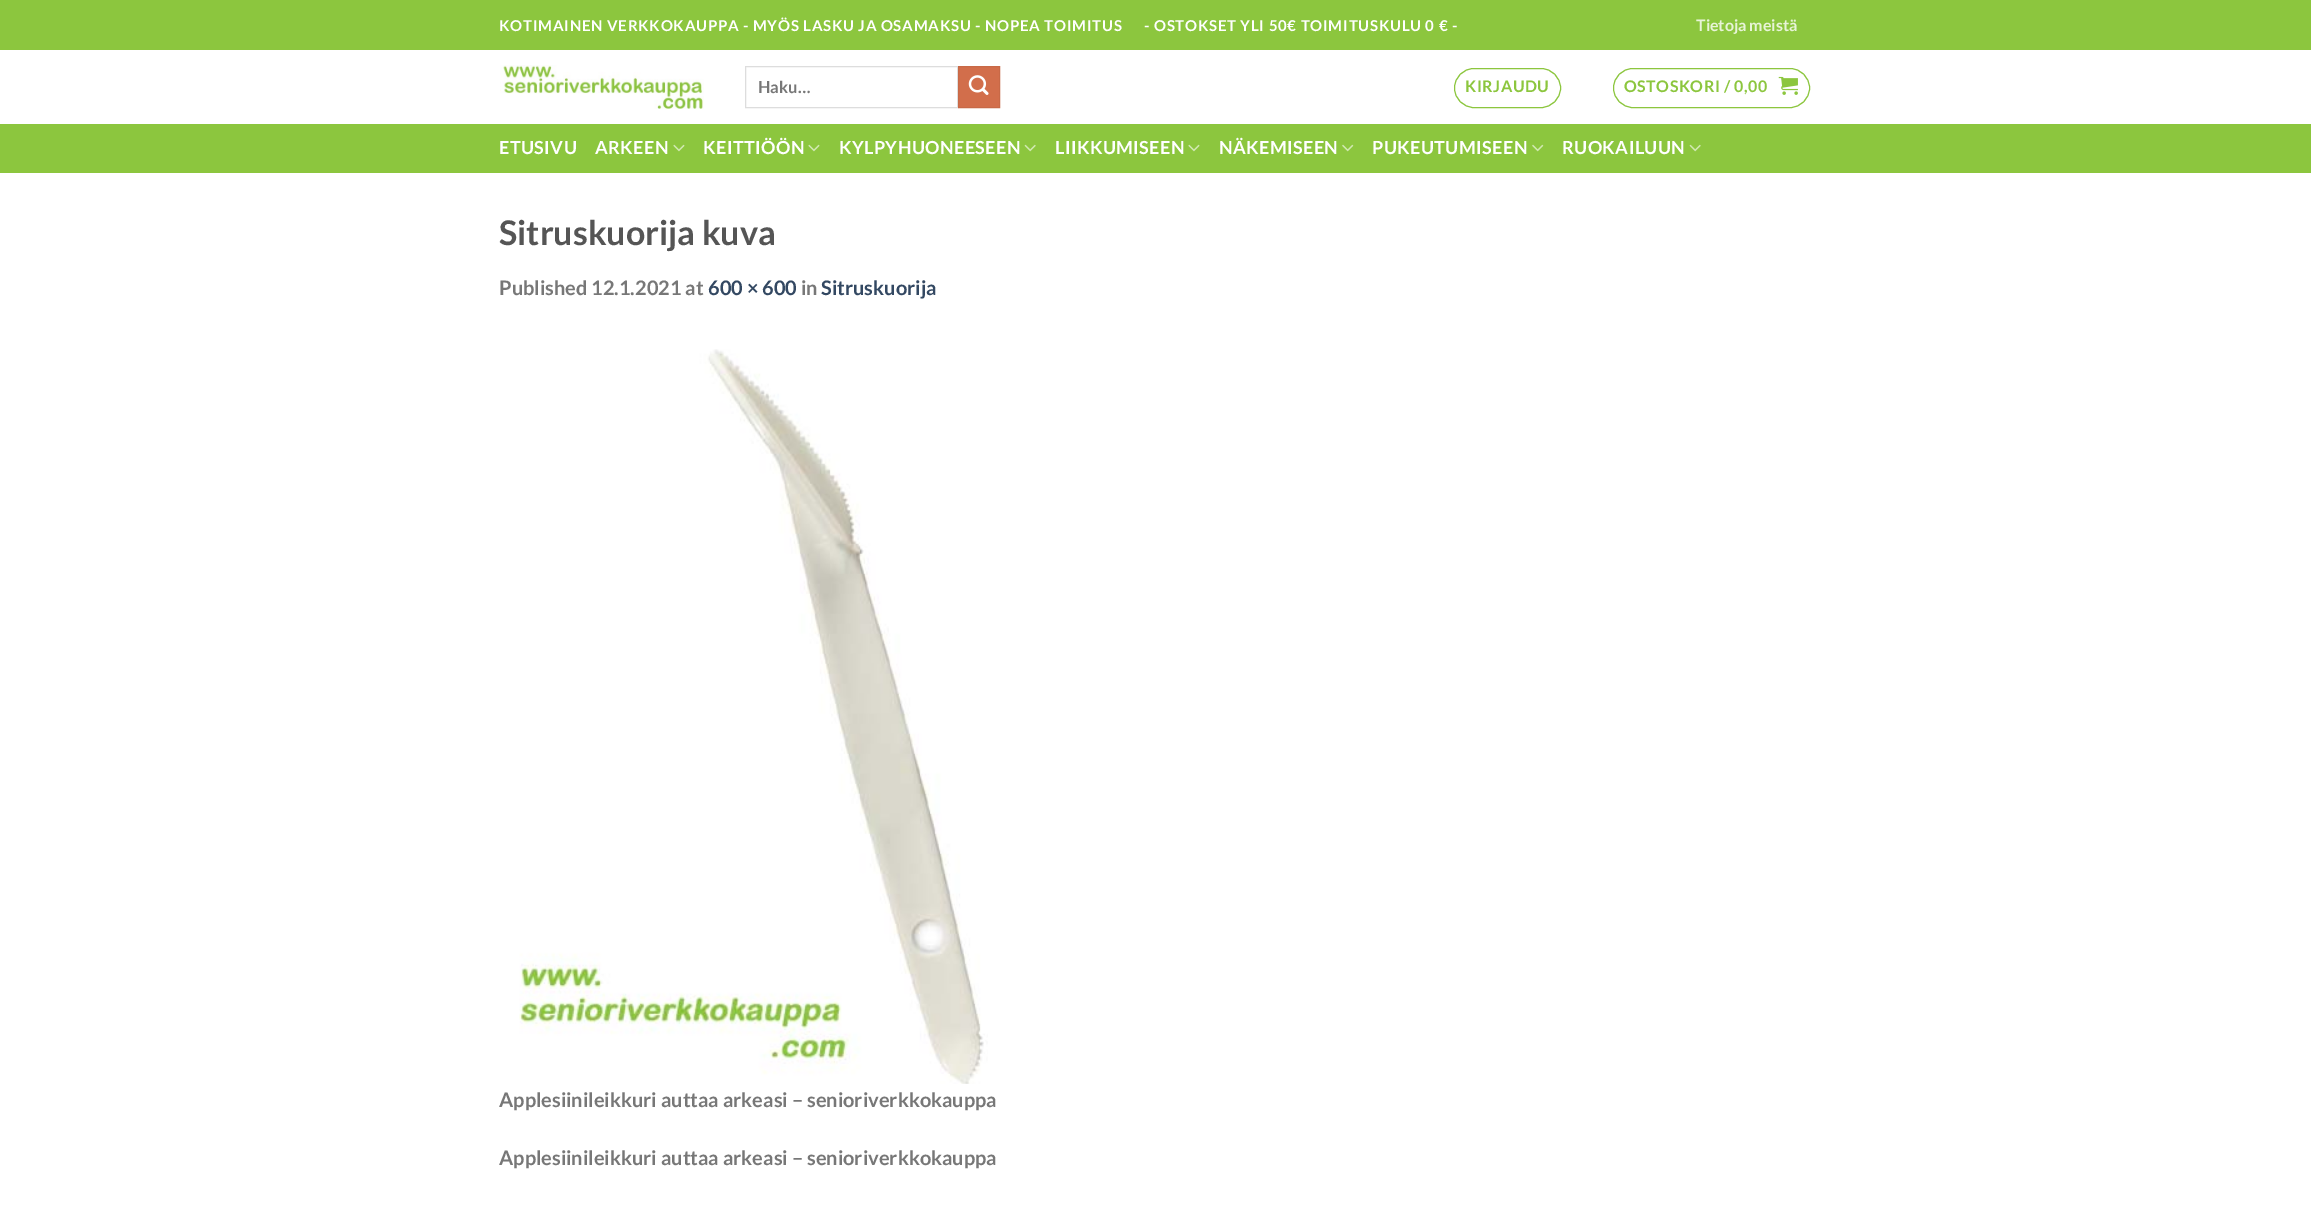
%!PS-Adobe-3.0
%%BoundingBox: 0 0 2311 1206
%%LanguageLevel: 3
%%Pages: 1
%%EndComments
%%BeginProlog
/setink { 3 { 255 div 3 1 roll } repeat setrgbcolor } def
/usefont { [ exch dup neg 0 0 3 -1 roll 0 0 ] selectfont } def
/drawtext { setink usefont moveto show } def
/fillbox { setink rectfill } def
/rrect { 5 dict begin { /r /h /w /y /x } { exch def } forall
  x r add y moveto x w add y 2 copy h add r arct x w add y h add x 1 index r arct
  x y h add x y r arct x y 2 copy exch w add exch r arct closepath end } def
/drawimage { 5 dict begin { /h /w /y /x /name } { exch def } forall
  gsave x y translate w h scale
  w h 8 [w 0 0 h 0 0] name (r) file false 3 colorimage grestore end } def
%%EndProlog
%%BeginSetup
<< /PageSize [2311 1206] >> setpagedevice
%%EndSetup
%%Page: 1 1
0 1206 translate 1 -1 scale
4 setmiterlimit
0 0 2311 1206 255 255 255 fillbox
0 0 2311 50 140 198 62 fillbox
/Lato-Bold 15 usefont
255 255 255 setink
499 31 moveto 0.75 0 (KOTIMAINEN VERKKOKAUPPA - MYÖS LASKU JA OSAMAKSU - NOPEA TOIMITUS) ashow
1144 31 moveto 0.75 0 (- OSTOKSET YLI 50€ TOIMITUSKULU 0 € -) ashow
(Tietoja meistä) 1696 31 /Lato-Bold 16 232 244 216 drawtext
(assets/img1.rgb) 500 65 204 44 drawimage
221 221 221 setink
745.5 66.5 212 41 rectstroke
(Haku…) 758 93 /Lato-Bold 16.5 119 119 119 drawtext
210 110 75 setink
958.5 66.5 moveto 999.5 66.5 lineto 999.5 107.5 lineto 958.5 107.5 lineto closepath gsave fill grestore
200 105 71 setink
stroke
(assets/img2.rgb) 968 75 21 20 drawimage
140 198 62 setink
1454.5 68.5 106 39 19.5 rrect stroke
/Lato-Bold 16 usefont
1465 92 moveto 0.5 0 (KIRJAUDU) ashow
1613.5 68.5 196 39 19.5 rrect stroke
1624 92 moveto 0.5 0 (OSTOSKORI / 0,00) ashow
(assets/img3.rgb) 1778 76 20 19 drawimage
0 124 2311 49 140 198 62 fillbox
/Lato-Bold 18 usefont
255 255 255 setink
499 154 moveto 0.4 0 (ETUSIVU) ashow
595 154 moveto 0.4 0 (ARKEEN) ashow
(assets/img4.rgb) 673 144 12 8 drawimage
703 154 moveto 0.4 0 (KEITTIÖÖN) ashow
(assets/img4.rgb) 808 144 12 8 drawimage
839 154 moveto 0.4 0 (KYLPYHUONEESEEN) ashow
(assets/img5.rgb) 1024 144 12 8 drawimage
1055 154 moveto 0.4 0 (LIIKKUMISEEN) ashow
(assets/img4.rgb) 1188 144 12 8 drawimage
1219 154 moveto 0.4 0 (NÄKEMISEEN) ashow
(assets/img6.rgb) 1342 144 12 8 drawimage
1372 154 moveto 0.4 0 (PUKEUTUMISEEN) ashow
(assets/img6.rgb) 1532 144 12 8 drawimage
1562 154 moveto 0.4 0 (RUOKAILUUN) ashow
(assets/img5.rgb) 1689 144 12 8 drawimage
(Sitruskuorija kuva) 499 245 /Lato-Bold 34 85 85 85 drawtext
(Published 12.1.2021 at) 499 295 /Lato-Bold 20 119 119 119 drawtext
(600 × 600) 708 295 /Lato-Bold 20 51 72 98 drawtext
(in) 801 295 /Lato-Bold 20 119 119 119 drawtext
(Sitruskuorija) 821 295 /Lato-Bold 20 51 72 98 drawtext
(assets/img7.rgb) 519 349 469 735 drawimage
(Applesiinileikkuri auttaa arkeasi – senioriverkkokauppa) 499 1107 /Lato-Bold 20 119 119 119 drawtext
(Applesiinileikkuri auttaa arkeasi – senioriverkkokauppa) 499 1165 /Lato-Bold 20 119 119 119 drawtext
showpage
%%EOF
